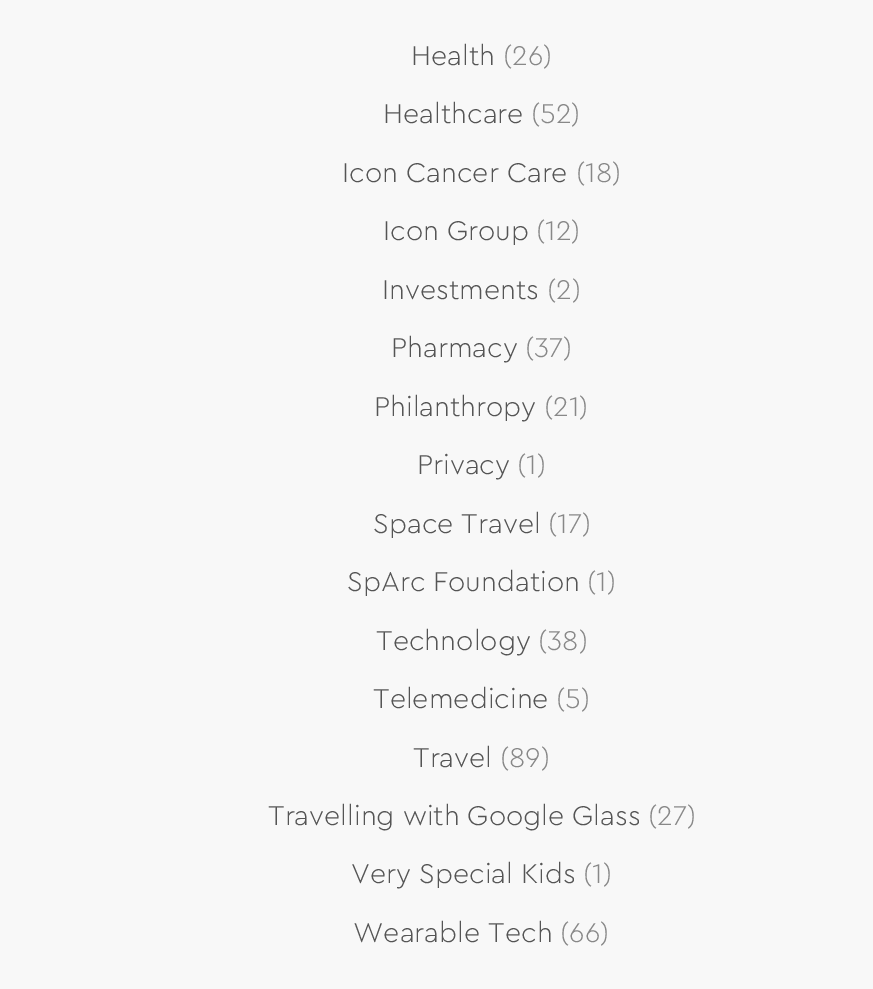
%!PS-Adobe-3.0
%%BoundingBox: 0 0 873 989
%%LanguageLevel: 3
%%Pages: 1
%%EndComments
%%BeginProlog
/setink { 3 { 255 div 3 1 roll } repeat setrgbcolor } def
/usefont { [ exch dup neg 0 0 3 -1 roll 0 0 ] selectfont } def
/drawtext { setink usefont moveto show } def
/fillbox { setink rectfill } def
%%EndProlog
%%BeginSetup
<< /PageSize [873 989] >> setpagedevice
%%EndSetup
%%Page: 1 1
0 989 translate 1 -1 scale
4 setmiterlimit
0 0 873 989 248 248 248 fillbox
(Health) 411 65 /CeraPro-Light 28.4 85 85 85 drawtext
(\(26\)) 503 65 /CeraPro-Light 28.4 136 136 136 drawtext
(Healthcare) 383 123 /CeraPro-Light 28.4 85 85 85 drawtext
(\(52\)) 531 123 /CeraPro-Light 28.4 136 136 136 drawtext
(Icon Cancer Care) 342 182 /CeraPro-Light 28.4 85 85 85 drawtext
(\(18\)) 576 182 /CeraPro-Light 28.4 136 136 136 drawtext
(Icon Group) 383 240 /CeraPro-Light 28.4 85 85 85 drawtext
(\(12\)) 536 240 /CeraPro-Light 28.4 136 136 136 drawtext
(Investments) 382 299 /CeraPro-Light 28.4 85 85 85 drawtext
(\(2\)) 547 299 /CeraPro-Light 28.4 136 136 136 drawtext
(Pharmacy) 391 357 /CeraPro-Light 28.4 85 85 85 drawtext
(\(37\)) 525 357 /CeraPro-Light 28.4 136 136 136 drawtext
(Philanthropy) 374 416 /CeraPro-Light 28.4 85 85 85 drawtext
(\(21\)) 544 416 /CeraPro-Light 28.4 136 136 136 drawtext
(Privacy) 417 474 /CeraPro-Light 28.4 85 85 85 drawtext
(\(1\)) 517 474 /CeraPro-Light 28.4 136 136 136 drawtext
(Space Travel) 373 533 /CeraPro-Light 28.4 85 85 85 drawtext
(\(17\)) 548 533 /CeraPro-Light 28.4 136 136 136 drawtext
(SpArc Foundation) 347 591 /CeraPro-Light 28.4 85 85 85 drawtext
(\(1\)) 587 591 /CeraPro-Light 28.4 136 136 136 drawtext
(Technology) 376 650 /CeraPro-Light 28.4 85 85 85 drawtext
(\(38\)) 538 650 /CeraPro-Light 28.4 136 136 136 drawtext
(Telemedicine) 373 708 /CeraPro-Light 28.4 85 85 85 drawtext
(\(5\)) 556 708 /CeraPro-Light 28.4 136 136 136 drawtext
(Travel) 413 767 /CeraPro-Light 28.4 85 85 85 drawtext
(\(89\)) 500 767 /CeraPro-Light 28.4 136 136 136 drawtext
(Travelling with Google Glass) 268 825 /CeraPro-Light 28.4 85 85 85 drawtext
(\(27\)) 648 825 /CeraPro-Light 28.4 136 136 136 drawtext
(Very Special Kids) 351 883 /CeraPro-Light 28.4 85 85 85 drawtext
(\(1\)) 583 883 /CeraPro-Light 28.4 136 136 136 drawtext
(Wearable Tech) 353 942 /CeraPro-Light 28.4 85 85 85 drawtext
(\(66\)) 560 942 /CeraPro-Light 28.4 136 136 136 drawtext
showpage
%%EOF
